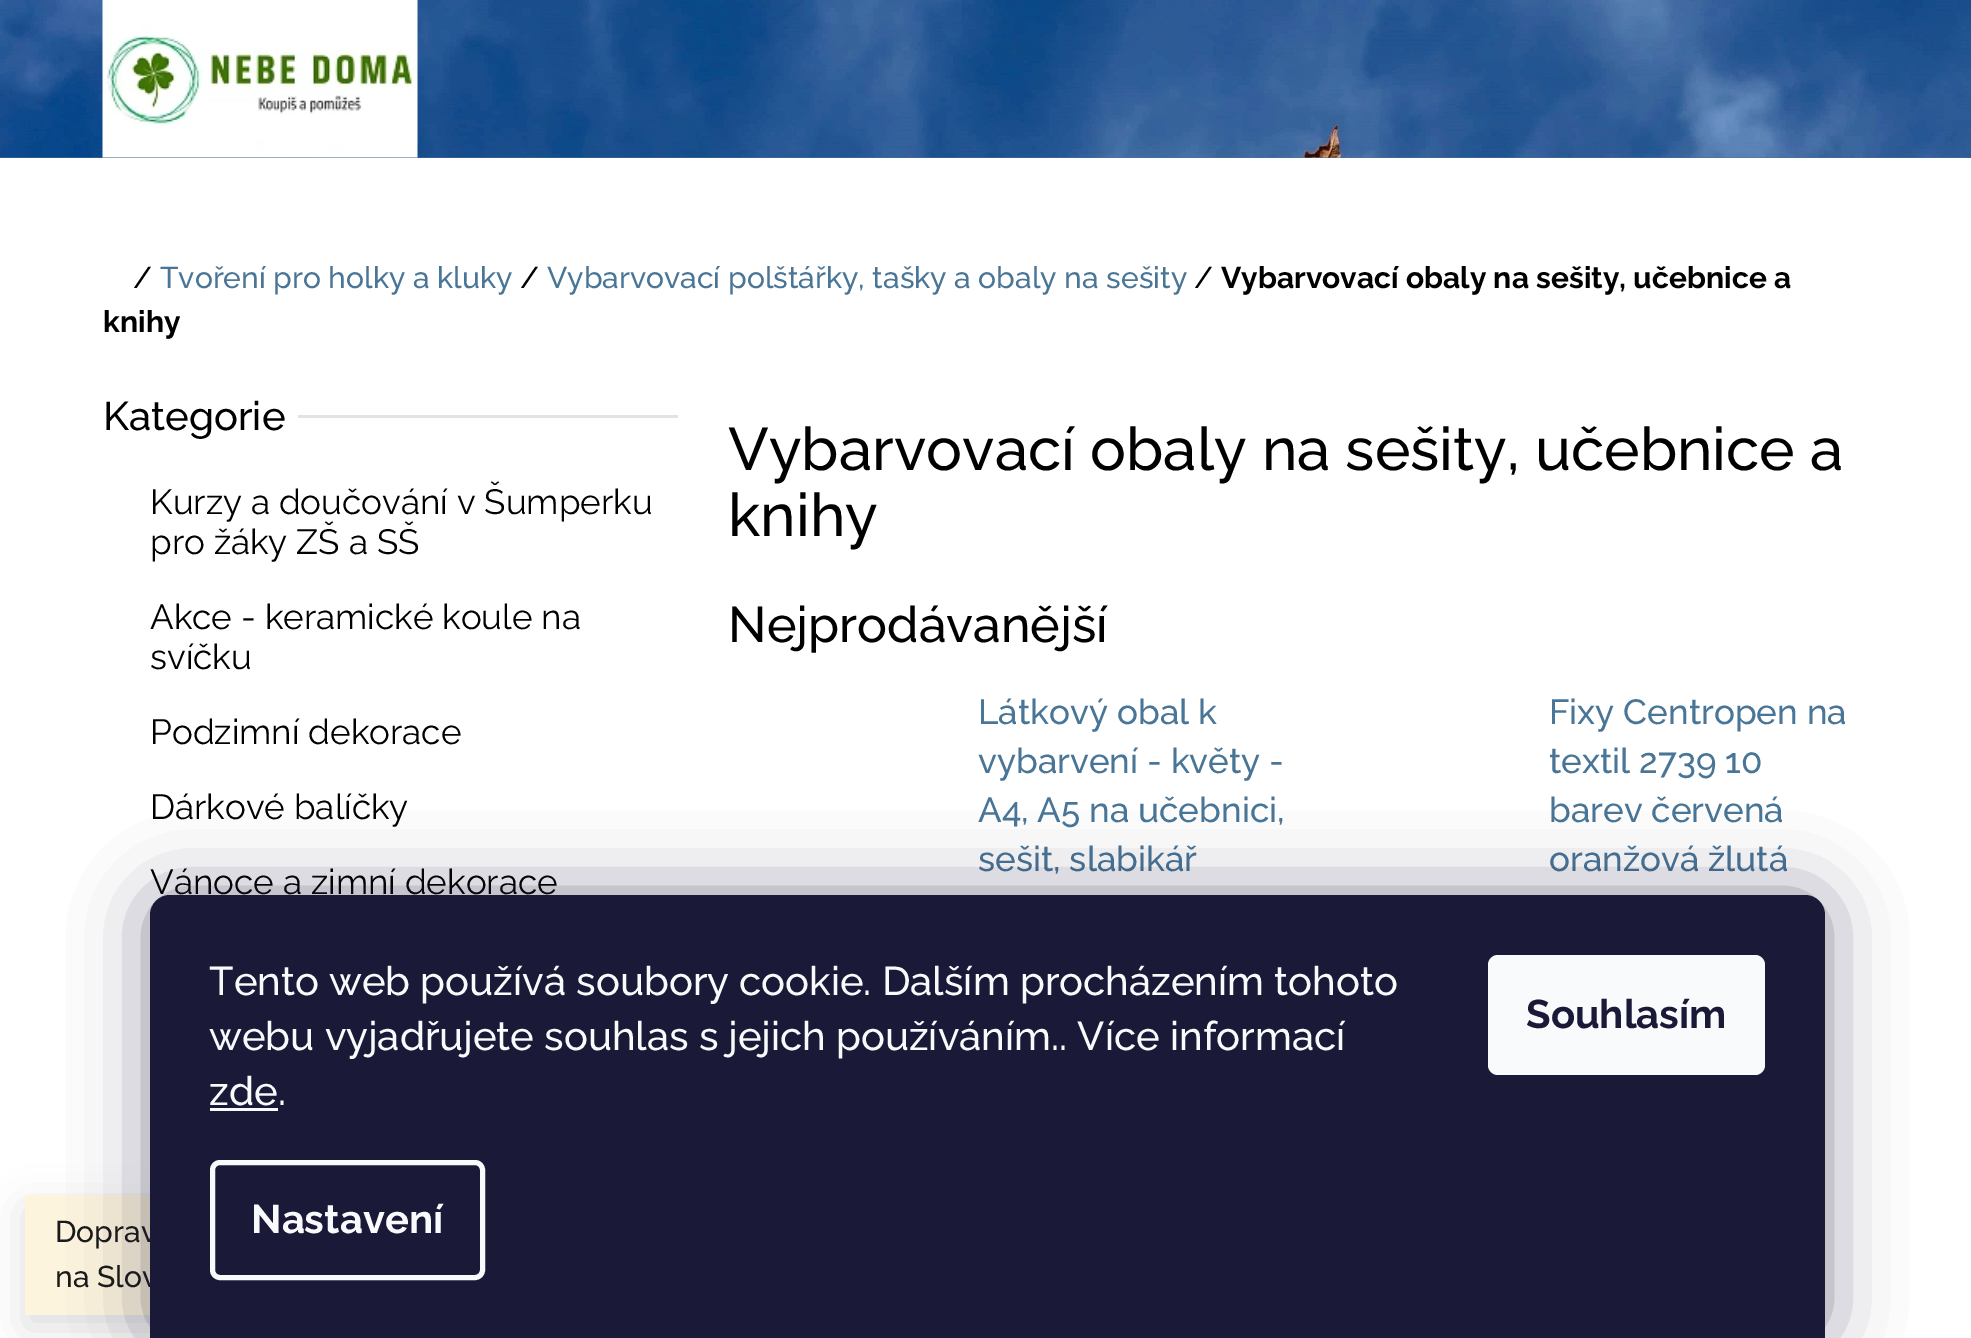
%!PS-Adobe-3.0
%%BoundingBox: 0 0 1971 1338
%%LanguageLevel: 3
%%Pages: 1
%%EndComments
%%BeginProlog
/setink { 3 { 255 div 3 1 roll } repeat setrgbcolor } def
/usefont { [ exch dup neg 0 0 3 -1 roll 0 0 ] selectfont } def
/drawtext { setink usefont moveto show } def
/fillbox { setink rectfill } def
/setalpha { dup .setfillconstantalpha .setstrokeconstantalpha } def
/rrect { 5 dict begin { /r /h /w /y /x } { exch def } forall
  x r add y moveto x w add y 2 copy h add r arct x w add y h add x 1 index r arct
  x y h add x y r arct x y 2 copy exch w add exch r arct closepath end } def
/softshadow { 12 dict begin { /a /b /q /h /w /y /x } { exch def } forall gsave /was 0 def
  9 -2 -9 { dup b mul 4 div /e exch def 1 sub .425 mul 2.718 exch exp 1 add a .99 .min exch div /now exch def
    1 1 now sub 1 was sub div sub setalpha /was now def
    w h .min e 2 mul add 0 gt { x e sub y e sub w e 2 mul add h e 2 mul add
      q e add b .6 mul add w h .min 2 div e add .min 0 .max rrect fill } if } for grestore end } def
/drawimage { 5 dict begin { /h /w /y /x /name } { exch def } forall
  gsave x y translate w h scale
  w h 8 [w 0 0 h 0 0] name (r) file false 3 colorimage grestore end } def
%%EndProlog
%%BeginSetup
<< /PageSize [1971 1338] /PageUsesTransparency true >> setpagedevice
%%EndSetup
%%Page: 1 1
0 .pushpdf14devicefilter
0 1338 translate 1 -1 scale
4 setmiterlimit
0 0 1971 1338 255 255 255 fillbox
0 157 1971 1 73 117 151 fillbox
(assets/img1.rgb) 0 0 1971 158 drawimage
(assets/img2.rgb) 102 0 316 158 drawimage
(/) 133 288 /Raleway-Medium 30 0 0 0 drawtext
(Tvoření pro holky a kluky) 160 288 /Raleway-Medium 30 73 117 151 drawtext
(/) 520 288 /Raleway-Medium 30 0 0 0 drawtext
(Vybarvovací polštářky, tašky a obaly na sešity) 547 288 /Raleway-Medium 30 73 117 151 drawtext
(/) 1194 288 /Raleway-Medium 30 0 0 0 drawtext
(Vybarvovací obaly na sešity, učebnice a) 1221 288 /Raleway-Bold 30 0 0 0 drawtext
(knihy) 103 332 /Raleway-Bold 30 0 0 0 drawtext
(Kategorie) 103 430 /Raleway-Medium 40 0 0 0 drawtext
298 415 380 3 227 227 227 fillbox
(Kurzy a doučování v Šumperku) 150 514 /Raleway-Thin 35 0 0 0 drawtext
(pro žáky ZŠ a SŠ) 150 554 /Raleway-Thin 35 0 0 0 drawtext
(Akce - keramické koule na) 150 629 /Raleway-Thin 35 0 0 0 drawtext
(svíčku) 150 669 /Raleway-Thin 35 0 0 0 drawtext
(Podzimní dekorace) 150 744 /Raleway-Thin 35 0 0 0 drawtext
(Dárkové balíčky) 150 819 /Raleway-Thin 35 0 0 0 drawtext
(Vánoce a zimní dekorace) 150 894 /Raleway-Thin 35 0 0 0 drawtext
(Vybarvovací obaly na sešity, učebnice a) 728 470 /Raleway-Medium 60 0 0 0 drawtext
(knihy) 728 536 /Raleway-Medium 60 0 0 0 drawtext
(Nejprodávanější) 728 642 /Raleway-Medium 50 0 0 0 drawtext
(Látkový obal k) 978 724 /Raleway-Medium 35 73 117 151 drawtext
(vybarvení - květy -) 978 773 /Raleway-Medium 35 73 117 151 drawtext
(A4, A5 na učebnici,) 978 822 /Raleway-Medium 35 73 117 151 drawtext
(sešit, slabikář) 978 871 /Raleway-Medium 35 73 117 151 drawtext
(Fixy Centropen na) 1549 724 /Raleway-Medium 35 73 117 151 drawtext
(textil 2739 10) 1549 773 /Raleway-Medium 35 73 117 151 drawtext
(barev červená) 1549 822 /Raleway-Medium 35 73 117 151 drawtext
(oranžová žlutá) 1549 871 /Raleway-Medium 35 73 117 151 drawtext
gsave
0 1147 moveto 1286 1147 lineto 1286 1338 lineto 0 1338 lineto closepath 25 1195 moveto 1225 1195 lineto 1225 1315 lineto 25 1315 lineto closepath eoclip newpath
0 0 0 setink
25 1208 1200 120 0 20 0.14 softshadow
grestore
0.9 setalpha
25 1195 125 120 253 243 218 fillbox
1 setalpha
(Doprav) 55 1242 /Raleway-Medium 30 26 26 26 drawtext
(na Slov) 55 1287 /Raleway-Medium 30 26 26 26 drawtext
27 25 57 setink
150 895 1675 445 20 37.5 0.5 softshadow
26 25 55 setink
170 895 moveto 1805 895 lineto 1816 895 1825 904 1825 915 curveto 1825 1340 lineto 150 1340 lineto 150 915 lineto 150 904 159 895 170 895 curveto closepath fill
(Tento web používá soubory cookie. Dalším procházením tohoto) 209 995 /Raleway-Medium 40 248 250 251 drawtext
(webu vyjadřujete souhlas s jejich používáním.. Více informací) 209 1050 /Raleway-Medium 40 248 250 251 drawtext
(zde.) 209 1105 /Raleway-Medium 40 248 250 251 drawtext
210 1108 68 3 248 250 251 fillbox
5 setlinewidth
212.5 1162.5 270 115 7.5 rrect stroke
(Nastavení) 251 1233 /Raleway-Bold 40 248 250 251 drawtext
1488 955 277 120 10 rrect fill
(Souhlasím) 1526 1028 /Raleway-Bold 40 26 25 55 drawtext
.poppdf14devicefilter showpage
%%EOF
